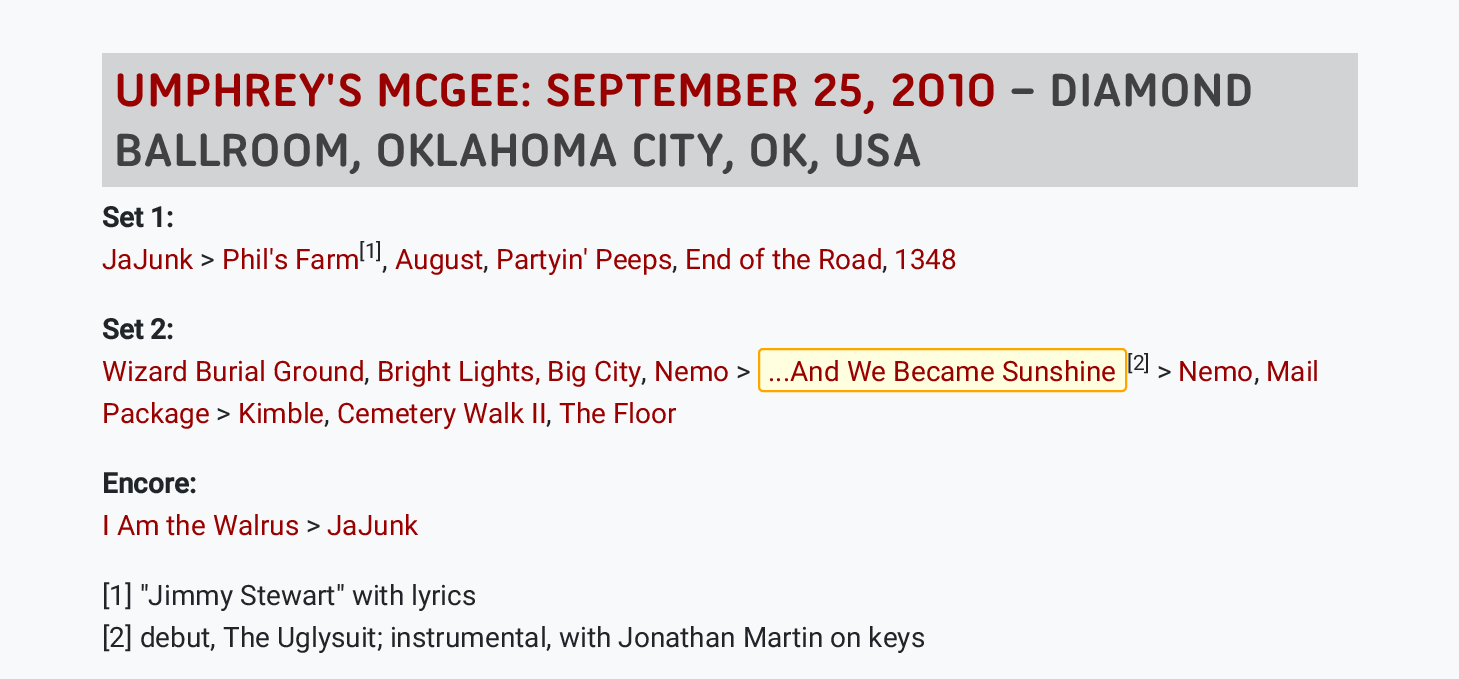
%!PS-Adobe-3.0
%%BoundingBox: 0 0 1459 679
%%LanguageLevel: 3
%%Pages: 1
%%EndComments
%%BeginProlog
/setink { 3 { 255 div 3 1 roll } repeat setrgbcolor } def
/usefont { [ exch dup neg 0 0 3 -1 roll 0 0 ] selectfont } def
/drawtext { setink usefont moveto show } def
/fillbox { setink rectfill } def
/rrect { 5 dict begin { /r /h /w /y /x } { exch def } forall
  x r add y moveto x w add y 2 copy h add r arct x w add y h add x 1 index r arct
  x y h add x y r arct x y 2 copy exch w add exch r arct closepath end } def
%%EndProlog
%%BeginSetup
<< /PageSize [1459 679] >> setpagedevice
%%EndSetup
%%Page: 1 1
0 679 translate 1 -1 scale
4 setmiterlimit
0 0 1459 679 248 249 250 fillbox
102 53 1256 134 209 211 212 fillbox
(UMPHREY'S MCGEE: SEPTEMBER 25, 2010) 114 106 /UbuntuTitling-Bold 50.25 153 0 0 drawtext
(– DIAMOND) 1009 106 /UbuntuTitling-Bold 50.25 65 64 66 drawtext
(BALLROOM, OKLAHOMA CITY, OK, USA) 114 166 /UbuntuTitling-Bold 50.25 65 64 66 drawtext
(Set 1:) 102 227 /Roboto-Bold 28 33 37 41 drawtext
(JaJunk) 102 269 /Roboto-Regular 28 153 0 0 drawtext
(>) 200 269 /Roboto-Regular 28 33 37 41 drawtext
(Phil's Farm) 222 269 /Roboto-Regular 28 153 0 0 drawtext
([1]) 359 258 /Roboto-Regular 21 33 37 41 drawtext
(August) 395 269 /Roboto-Regular 28 153 0 0 drawtext
(Partyin' Peeps) 496 269 /Roboto-Regular 28 153 0 0 drawtext
(End of the Road) 685 269 /Roboto-Regular 28 153 0 0 drawtext
(1348) 894 269 /Roboto-Regular 28 153 0 0 drawtext
(,) 382 269 /Roboto-Regular 28 33 37 41 drawtext
(,) 483 269 /Roboto-Regular 28 33 37 41 drawtext
(,) 672 269 /Roboto-Regular 28 33 37 41 drawtext
(,) 882 269 /Roboto-Regular 28 33 37 41 drawtext
(Set 2:) 102 339 /Roboto-Bold 28 33 37 41 drawtext
(Wizard Burial Ground) 102 381 /Roboto-Regular 28 153 0 0 drawtext
(Bright Lights, Big City) 377 381 /Roboto-Regular 28 153 0 0 drawtext
(Nemo) 654 381 /Roboto-Regular 28 153 0 0 drawtext
(>) 736 381 /Roboto-Regular 28 33 37 41 drawtext
255 255 224 setink
759 349 367 42 4 rrect gsave fill grestore
255 165 0 setink
2 setlinewidth
stroke
(...And We Became Sunshine) 768 381 /Roboto-Regular 28 153 0 0 drawtext
([2]) 1127 370 /Roboto-Regular 21 33 37 41 drawtext
(>) 1157 381 /Roboto-Regular 28 33 37 41 drawtext
(Nemo) 1178 381 /Roboto-Regular 28 153 0 0 drawtext
(Mail) 1266 381 /Roboto-Regular 28 153 0 0 drawtext
(,) 364 381 /Roboto-Regular 28 33 37 41 drawtext
(,) 641 381 /Roboto-Regular 28 33 37 41 drawtext
(,) 1254 381 /Roboto-Regular 28 33 37 41 drawtext
(Package) 102 423 /Roboto-Regular 28 153 0 0 drawtext
(>) 216 423 /Roboto-Regular 28 33 37 41 drawtext
(Kimble) 238 423 /Roboto-Regular 28 153 0 0 drawtext
(Cemetery Walk II) 337 423 /Roboto-Regular 28 153 0 0 drawtext
(The Floor) 559 423 /Roboto-Regular 28 153 0 0 drawtext
(,) 324 423 /Roboto-Regular 28 33 37 41 drawtext
(,) 546 423 /Roboto-Regular 28 33 37 41 drawtext
(Encore:) 102 493 /Roboto-Bold 28 33 37 41 drawtext
(I Am the Walrus) 102 535 /Roboto-Regular 28 153 0 0 drawtext
(>) 306 535 /Roboto-Regular 28 33 37 41 drawtext
(JaJunk) 327 535 /Roboto-Regular 28 153 0 0 drawtext
([1] "Jimmy Stewart" with lyrics) 102 605 /Roboto-Regular 28 33 37 41 drawtext
([2] debut, The Uglysuit; instrumental, with Jonathan Martin on keys) 102 647 /Roboto-Regular 28 33 37 41 drawtext
showpage
%%EOF
